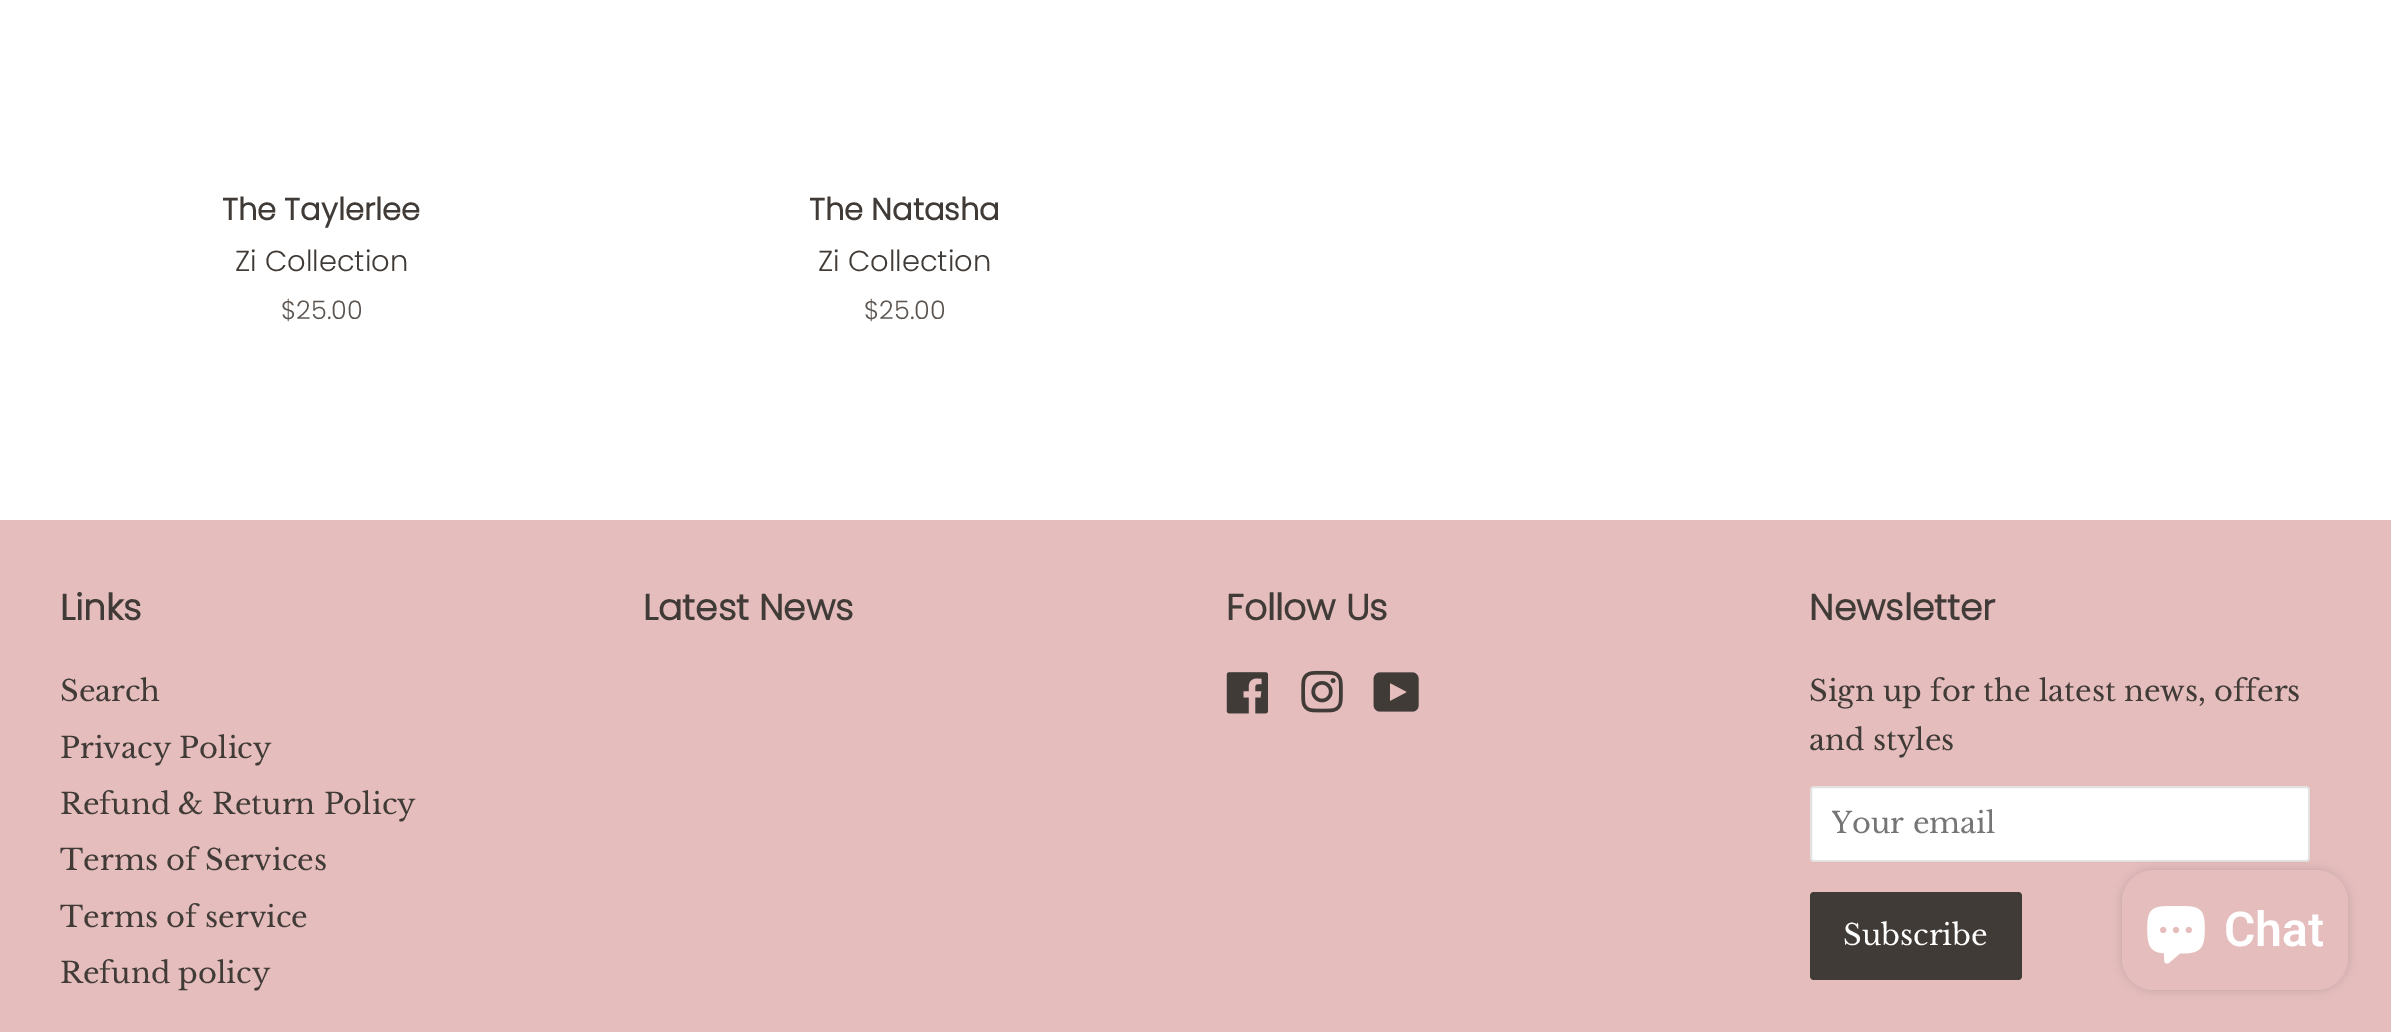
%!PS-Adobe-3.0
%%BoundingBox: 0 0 2391 1032
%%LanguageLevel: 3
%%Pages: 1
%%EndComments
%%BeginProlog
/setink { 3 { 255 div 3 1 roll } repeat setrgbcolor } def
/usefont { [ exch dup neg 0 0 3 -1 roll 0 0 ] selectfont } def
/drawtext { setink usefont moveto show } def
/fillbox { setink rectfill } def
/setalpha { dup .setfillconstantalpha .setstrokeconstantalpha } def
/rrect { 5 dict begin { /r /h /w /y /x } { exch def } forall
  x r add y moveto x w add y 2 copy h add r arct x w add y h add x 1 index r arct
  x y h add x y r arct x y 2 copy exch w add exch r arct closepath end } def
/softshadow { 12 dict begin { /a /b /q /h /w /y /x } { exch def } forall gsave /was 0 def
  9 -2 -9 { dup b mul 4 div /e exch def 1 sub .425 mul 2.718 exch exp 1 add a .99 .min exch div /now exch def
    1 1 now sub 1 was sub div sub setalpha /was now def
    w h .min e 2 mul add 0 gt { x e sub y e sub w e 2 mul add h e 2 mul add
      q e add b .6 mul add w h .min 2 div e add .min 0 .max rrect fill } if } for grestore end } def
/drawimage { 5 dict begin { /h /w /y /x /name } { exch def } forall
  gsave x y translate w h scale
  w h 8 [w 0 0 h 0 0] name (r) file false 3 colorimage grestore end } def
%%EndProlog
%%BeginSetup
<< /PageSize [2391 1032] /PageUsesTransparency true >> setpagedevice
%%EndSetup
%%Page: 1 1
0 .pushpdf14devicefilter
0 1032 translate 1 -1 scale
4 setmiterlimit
0 0 2391 1032 255 255 255 fillbox
(The Taylerlee) 222 220 /Poppins-Bold 30.5 64 59 55 drawtext
(Zi Collection) 235 271 /Poppins-Light 28.9 64 59 55 drawtext
($25.00) 281 319 /Poppins-Light 25.5 91 84 79 drawtext
(The Natasha) 809 220 /Poppins-Bold 30.5 64 59 55 drawtext
(Zi Collection) 818 271 /Poppins-Light 28.9 64 59 55 drawtext
($25.00) 864 319 /Poppins-Light 25.5 91 84 79 drawtext
0 520 2391 512 229 189 189 fillbox
(Links) 60 620 /Poppins-Bold 36 64 59 55 drawtext
(Search) 60 701 /LibreBaskerville-Regular 28.9 64 59 55 drawtext
(Privacy Policy) 60 758 /LibreBaskerville-Regular 28.9 64 59 55 drawtext
(Refund & Return Policy) 60 814 /LibreBaskerville-Regular 28.9 64 59 55 drawtext
(Terms of Services) 60 870 /LibreBaskerville-Regular 28.9 64 59 55 drawtext
(Terms of service) 60 927 /LibreBaskerville-Regular 28.9 64 59 55 drawtext
(Refund policy) 60 983 /LibreBaskerville-Regular 28.9 64 59 55 drawtext
(Latest News) 643 620 /Poppins-Bold 36 64 59 55 drawtext
(Follow Us) 1226 620 /Poppins-Bold 36 64 59 55 drawtext
(assets/img1.rgb) 1226 672 42 42 drawimage
(assets/img2.rgb) 1301 670 42 43 drawimage
(assets/img3.rgb) 1373 672 46 40 drawimage
(Newsletter) 1809 620 /Poppins-Bold 36 64 59 55 drawtext
(Sign up for the latest news, offers) 1809 701 /LibreBaskerville-Regular 28.9 64 59 55 drawtext
(and styles) 1809 750 /LibreBaskerville-Regular 28.9 64 59 55 drawtext
255 255 255 setink
1810 786 500 76 4 rrect fill
0.15 setalpha
64 59 55 setink
2 setlinewidth
1811 787 498 74 3 rrect stroke
gsave
1832 806 456 36 rectclip
1 setalpha
(Your email) 1831 833 /LibreBaskerville-Regular 28.9 117 117 117 drawtext
grestore
1 setalpha
1810 892 212 88 4 rrect fill
(Subscribe) 1843 945 /LibreBaskerville-Regular 28.9 255 255 255 drawtext
0 0 0 setink
2122 870 226 120 32 5 0.15 softshadow
229 189 189 setink
2122 870 226 120 32 rrect fill
(assets/img4.rgb) 2147 906 58 58 drawimage
(Chat) 2224 946 /Roboto-SemiBold 48 255 255 255 drawtext
.poppdf14devicefilter showpage
%%EOF
